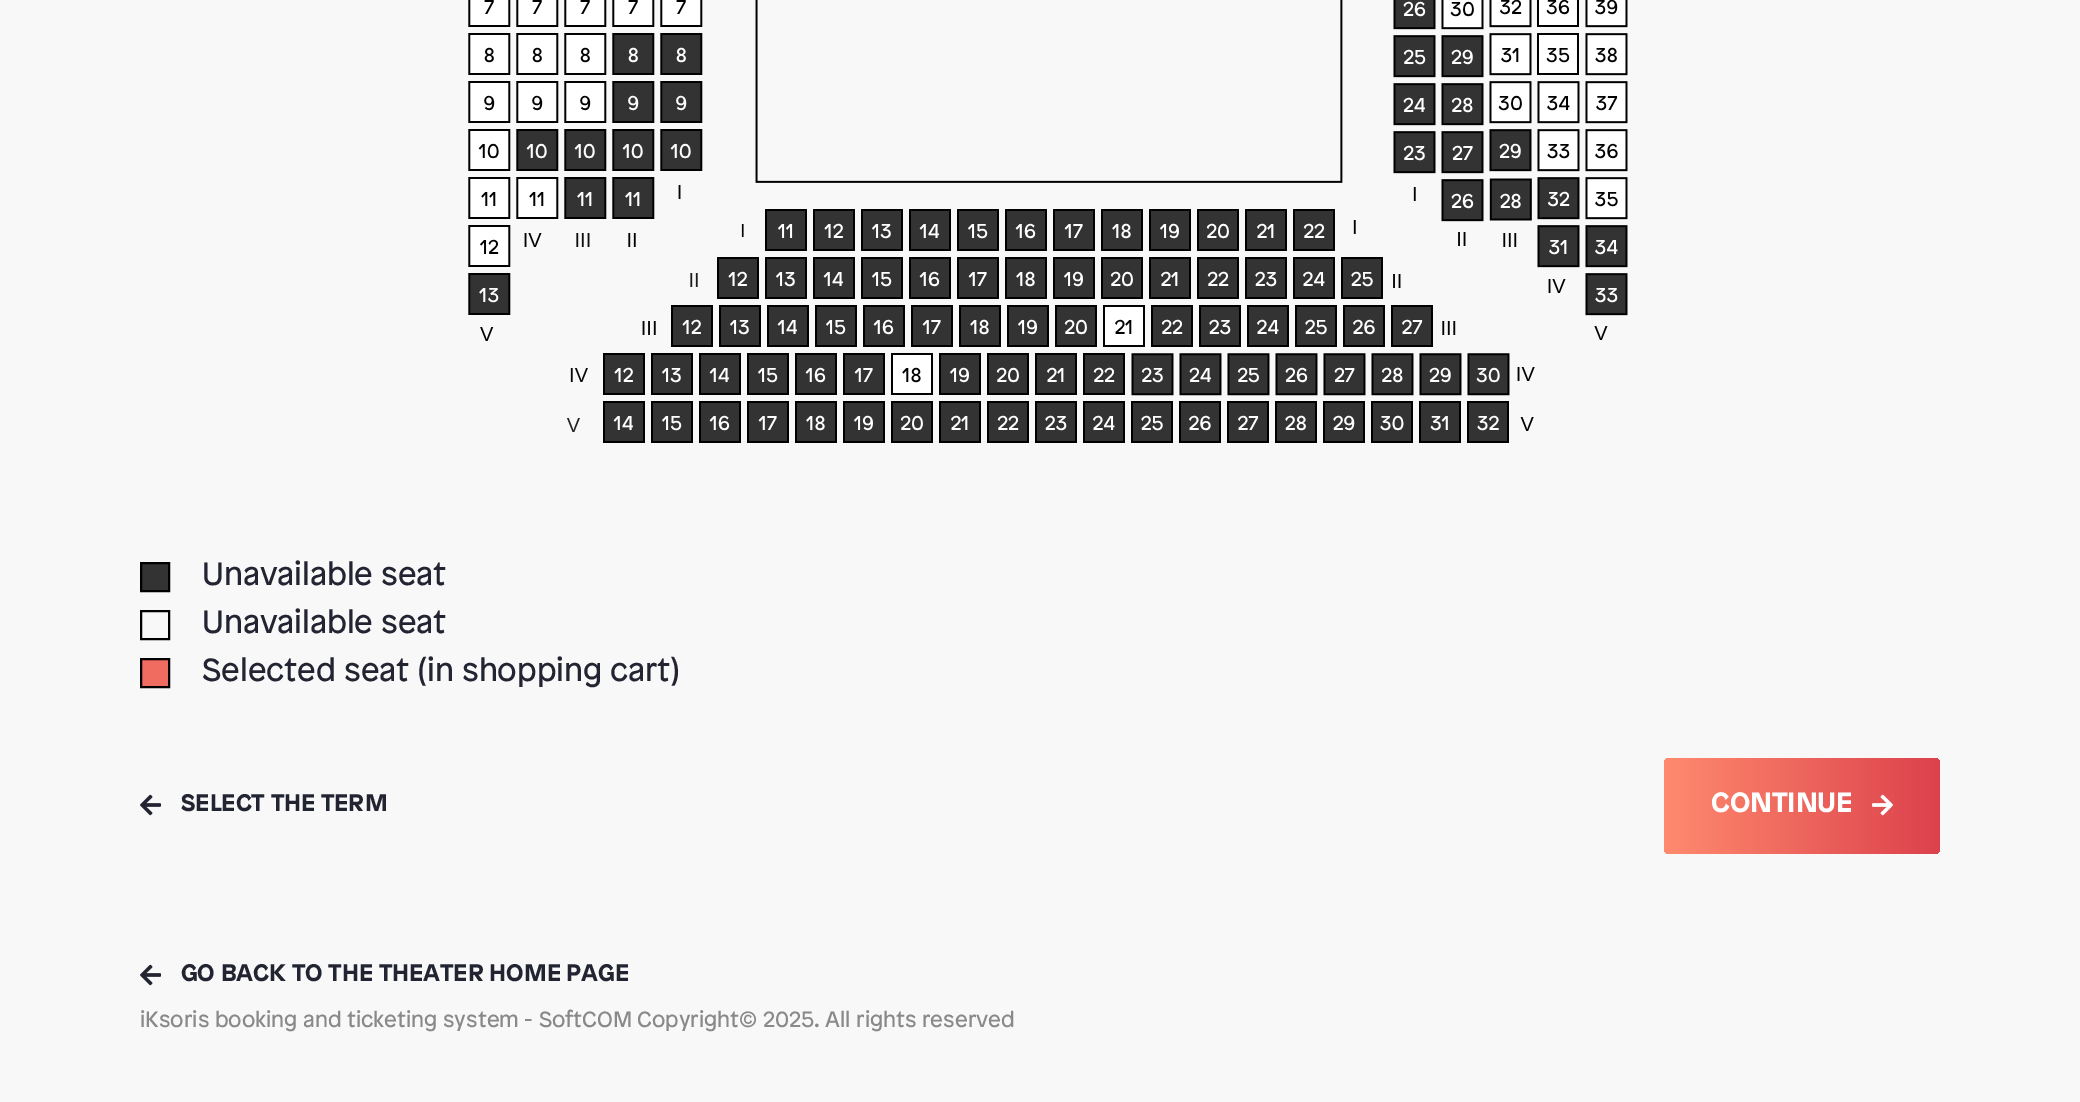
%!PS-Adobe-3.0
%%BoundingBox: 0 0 2080 1102
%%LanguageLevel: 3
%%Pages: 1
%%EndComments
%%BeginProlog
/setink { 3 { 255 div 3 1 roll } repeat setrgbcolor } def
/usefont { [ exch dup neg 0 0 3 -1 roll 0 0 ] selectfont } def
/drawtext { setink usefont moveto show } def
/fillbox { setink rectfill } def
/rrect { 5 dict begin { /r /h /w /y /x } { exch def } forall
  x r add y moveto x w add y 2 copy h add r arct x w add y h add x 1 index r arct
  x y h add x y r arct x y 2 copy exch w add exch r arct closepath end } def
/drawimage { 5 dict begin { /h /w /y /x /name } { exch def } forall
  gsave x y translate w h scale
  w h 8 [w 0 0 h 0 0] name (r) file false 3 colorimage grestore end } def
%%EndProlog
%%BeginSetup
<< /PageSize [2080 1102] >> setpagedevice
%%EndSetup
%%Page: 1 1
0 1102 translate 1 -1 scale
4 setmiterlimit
0 0 2080 1102 248 248 248 fillbox
(assets/img1.rgb) 468 0 1160 443 drawimage
51 51 51 setink
141 563 moveto 169 563 lineto 169 591 lineto 141 591 lineto closepath gsave fill grestore
0 0 0 setink
2 setlinewidth
stroke
(Unavailable seat) 202 585 /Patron-Regular 32 34 36 50 drawtext
0 0 0 setink
141 611 28 28 rectstroke
(Unavailable seat) 202 633 /Patron-Regular 32 34 36 50 drawtext
241 108 96 setink
141 659 moveto 169 659 lineto 169 687 lineto 141 687 lineto closepath gsave fill grestore
0 0 0 setink
stroke
(Selected seat \(in shopping cart\)) 202 681 /Patron-Regular 32 34 36 50 drawtext
(assets/img2.rgb) 140 794 22 22 drawimage
(SELECT THE TERM) 181 811 /Patron-Bold 24 34 36 50 drawtext
gsave 1664 758 276 96 6 rrect clip newpath
<< /ShadingType 2 /ColorSpace /DeviceRGB /Coords [1664 806 1940 806] /Extend [true true] /Function << /FunctionType 2 /Domain [0 1] /C0 [1 0.541 0.431] /C1 [0.863 0.255 0.298] /N 1 >> >> shfill grestore
(CONTINUE) 1711 812 /Patron-Bold 28 255 255 255 drawtext
(assets/img3.rgb) 1872 794 21 22 drawimage
(assets/img2.rgb) 140 964 22 22 drawimage
(GO BACK TO THE THEATER HOME PAGE) 181 981 /Patron-Bold 24 34 36 50 drawtext
(iKsoris booking and ticketing system - SoftCOM Copyright© 2025. All rights reserved) 140 1027 /Patron-Regular 22 137 137 137 drawtext
showpage
%%EOF
